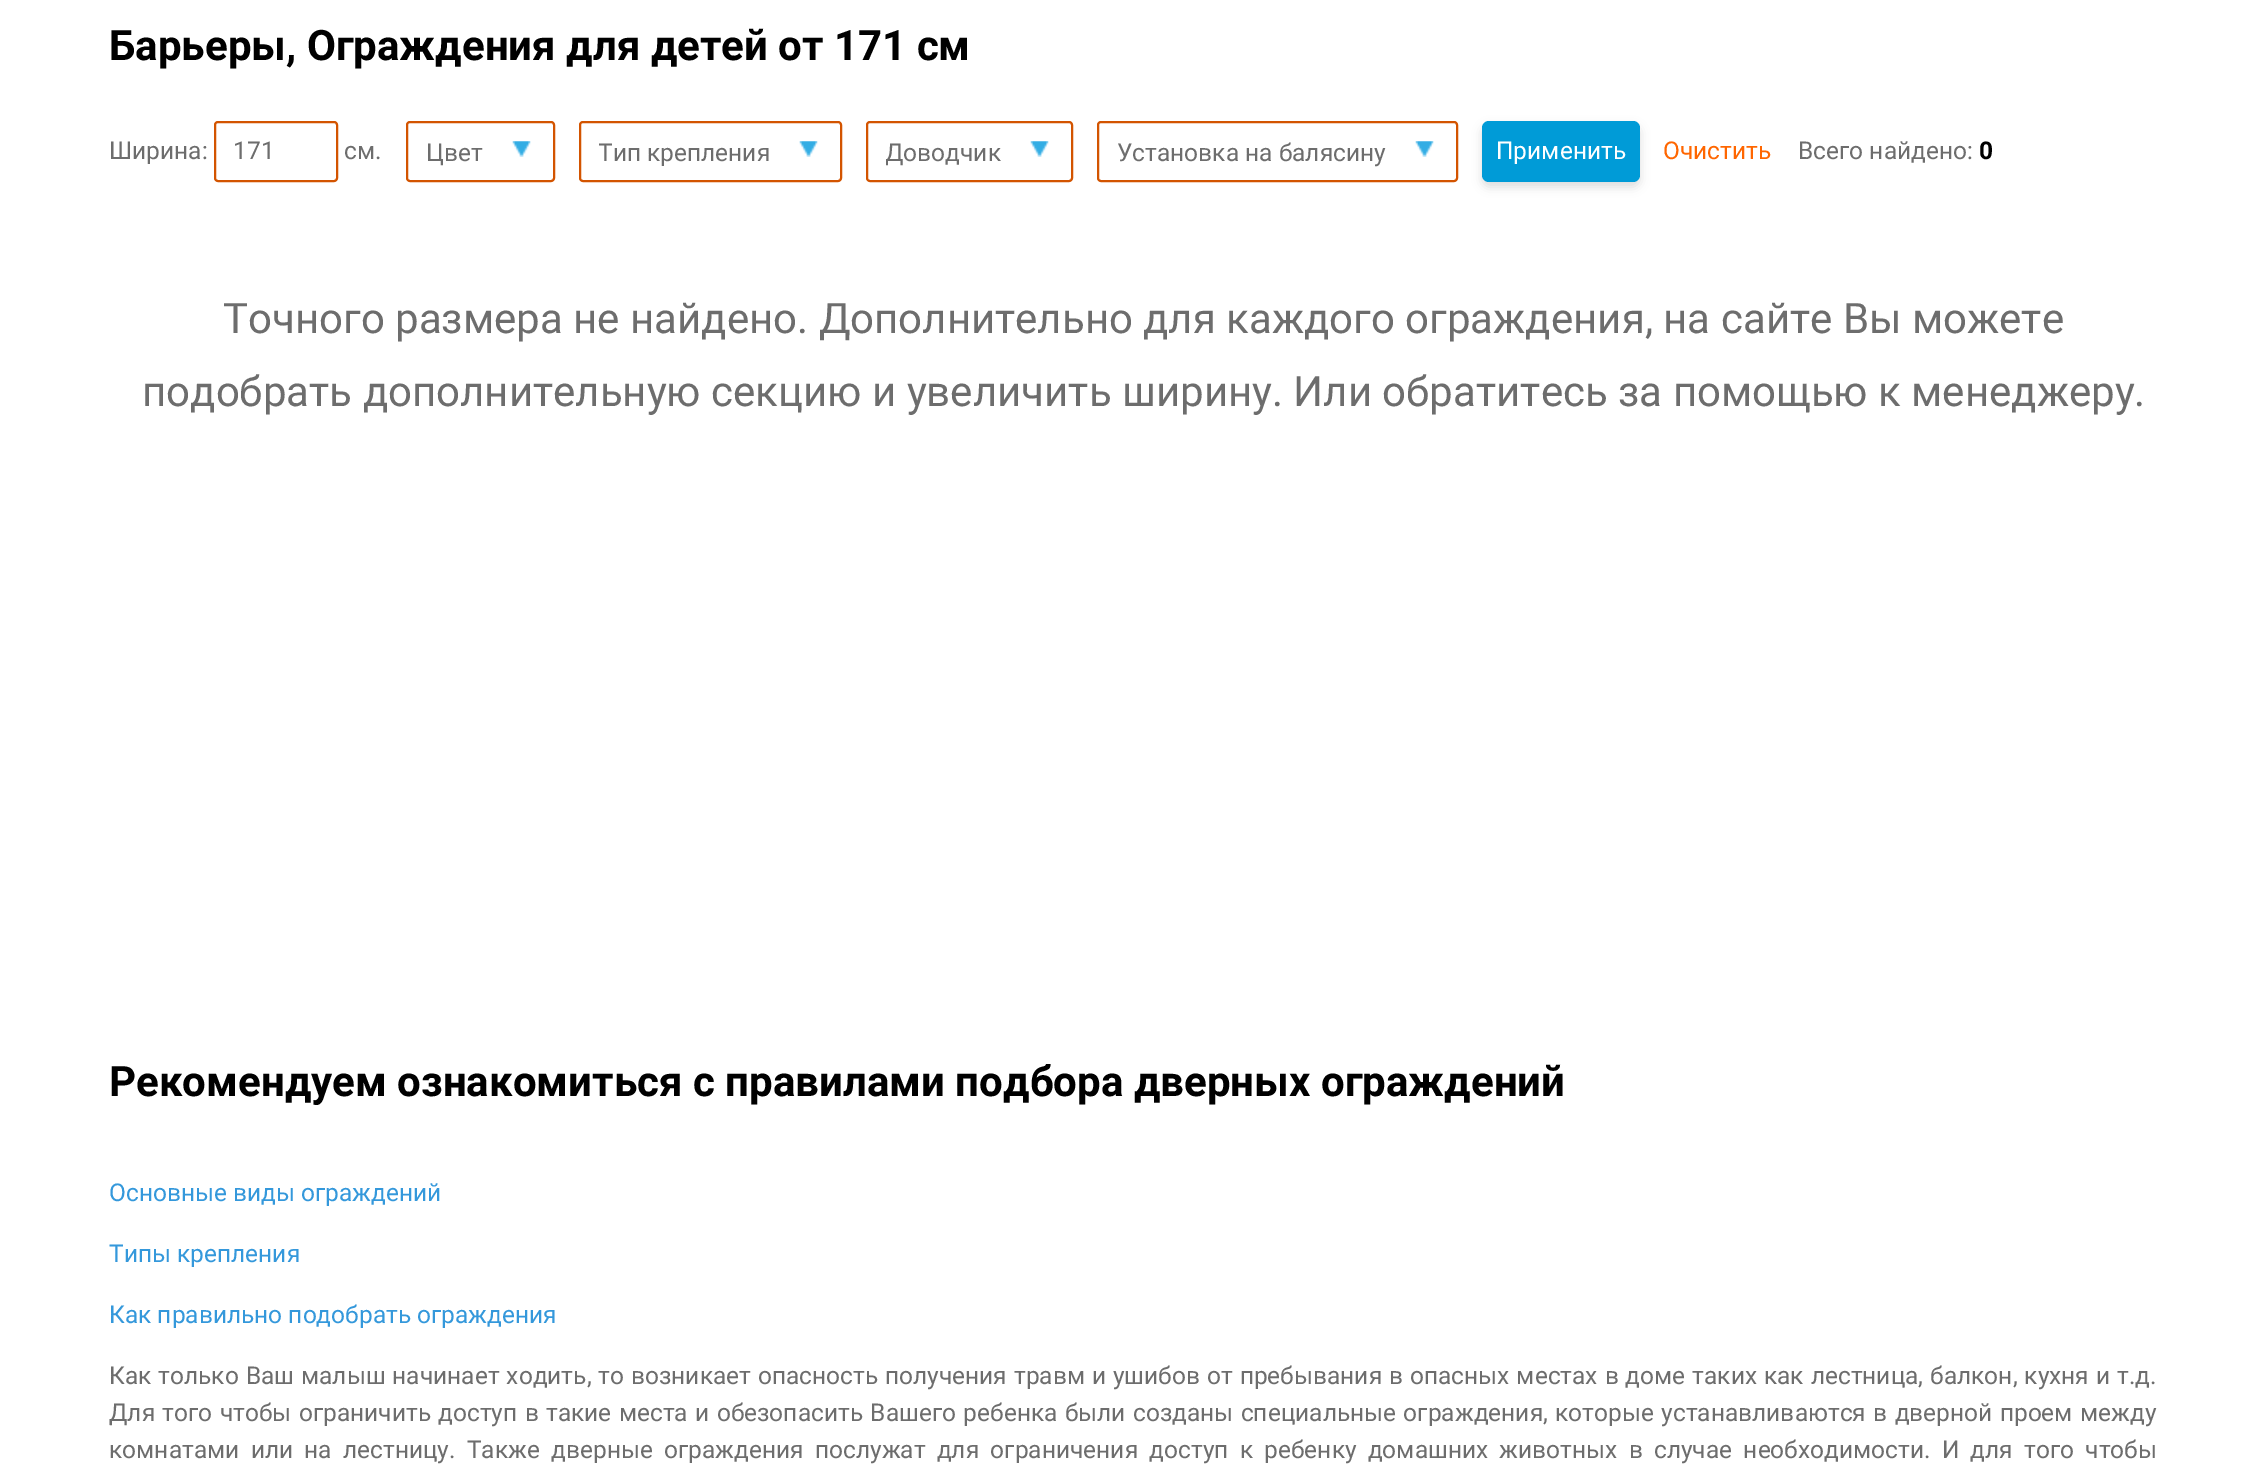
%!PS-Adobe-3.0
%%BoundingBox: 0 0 2266 1470
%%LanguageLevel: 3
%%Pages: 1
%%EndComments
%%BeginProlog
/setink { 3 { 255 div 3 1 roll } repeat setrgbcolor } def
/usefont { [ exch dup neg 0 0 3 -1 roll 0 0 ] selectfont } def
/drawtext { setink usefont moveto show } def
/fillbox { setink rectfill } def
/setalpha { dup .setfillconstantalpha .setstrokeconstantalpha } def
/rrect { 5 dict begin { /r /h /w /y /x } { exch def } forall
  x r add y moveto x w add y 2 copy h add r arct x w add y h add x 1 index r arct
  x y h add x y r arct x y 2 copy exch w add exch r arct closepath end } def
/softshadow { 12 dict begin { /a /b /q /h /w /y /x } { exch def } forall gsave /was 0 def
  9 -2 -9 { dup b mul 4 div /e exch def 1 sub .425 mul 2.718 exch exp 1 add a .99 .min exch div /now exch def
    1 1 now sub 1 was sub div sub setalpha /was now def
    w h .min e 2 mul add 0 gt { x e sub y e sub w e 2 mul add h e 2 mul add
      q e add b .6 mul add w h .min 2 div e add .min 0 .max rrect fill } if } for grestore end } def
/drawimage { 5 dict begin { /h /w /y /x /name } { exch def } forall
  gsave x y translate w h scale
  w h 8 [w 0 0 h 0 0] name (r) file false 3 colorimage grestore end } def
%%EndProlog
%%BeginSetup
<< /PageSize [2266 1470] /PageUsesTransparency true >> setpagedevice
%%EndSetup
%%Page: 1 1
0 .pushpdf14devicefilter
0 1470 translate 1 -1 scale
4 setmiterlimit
0 0 2266 1470 255 255 255 fillbox
(Барьеры, Ограждения для детей от 171 см) 109 60 /Roboto-Bold 42 0 0 0 drawtext
(Ширина:) 109 159 /Roboto-Regular 24.5 109 109 109 drawtext
211 84 0 setink
2 setlinewidth
215 122 122 59 3 rrect stroke
(171) 233 159 /Roboto-Regular 24.5 109 109 109 drawtext
(см.) 344 159 /Roboto-Regular 24.5 109 109 109 drawtext
211 84 0 setink
407 122 147 59 3 rrect stroke
(Цвет) 426 161 /Roboto-Regular 24.5 109 109 109 drawtext
(assets/img1.rgb) 512 141 19 16 drawimage
211 84 0 setink
580 122 261 59 3 rrect stroke
gsave
599 123 224 61 rectclip
(Тип крепления) 598 161 /Roboto-Regular 24.5 109 109 109 drawtext
grestore
(assets/img1.rgb) 799 141 19 16 drawimage
867 122 205 59 3 rrect stroke
gsave
886 123 168 61 rectclip
(Доводчик) 885 161 /Roboto-Regular 24.5 109 109 109 drawtext
grestore
(assets/img1.rgb) 1030 141 19 16 drawimage
1098 122 359 59 3 rrect stroke
(Установка на балясину) 1117 161 /Roboto-Regular 24.5 109 109 109 drawtext
(assets/img2.rgb) 1415 141 19 16 drawimage
0 0 0 setink
1482 126 158 61 7 5 0.14 softshadow
0 155 215 setink
1482 121 158 61 7 rrect fill
(Применить) 1496 159 /Roboto-Regular 24.5 255 255 255 drawtext
(Очистить) 1663 159 /Roboto-Regular 24.5 255 102 0 drawtext
(Всего найдено:) 1798 159 /Roboto-Regular 24.5 109 109 109 drawtext
(0) 1979 159 /Roboto-Bold 24.5 0 0 0 drawtext
(Точного размера не найдено. Дополнительно для каждого ограждения, на сайте Вы можете) 223 333 /Roboto-Regular 42 109 109 109 drawtext
(подобрать дополнительную секцию и увеличить ширину. Или обратитесь за помощью к менеджеру.) 142 406 /Roboto-Regular 42 109 109 109 drawtext
(Рекомендуем ознакомиться с правилами подбора дверных ограждений) 109 1096 /Roboto-Bold 42 0 0 0 drawtext
(Основные виды ограждений) 109 1201 /Roboto-Regular 24.5 52 152 219 drawtext
(Типы крепления) 109 1262 /Roboto-Regular 24.5 52 152 219 drawtext
(Как правильно подобрать ограждения) 109 1323 /Roboto-Regular 24.5 52 152 219 drawtext
109 109 109 setink
109 1384 moveto 0.85 0 32 (Как только Ваш малыш начинает ходить, то возникает опасность получения травм и ушибов от пребывания в опасных местах в доме таких как лестница, балкон, кухня и т.д.) widthshow
109 1421 moveto 1.25 0 32 (Для того чтобы ограничить доступ в такие места и обезопасить Вашего ребенка были созданы специальные ограждения, которые устанавливаются в дверной проем между) widthshow
109 1458 moveto 5.2 0 32 (комнатами или на лестницу. Также дверные ограждения послужат для ограничения доступ к ребенку домашних животных в случае необходимости. И для того чтобы) widthshow
.poppdf14devicefilter showpage
%%EOF
